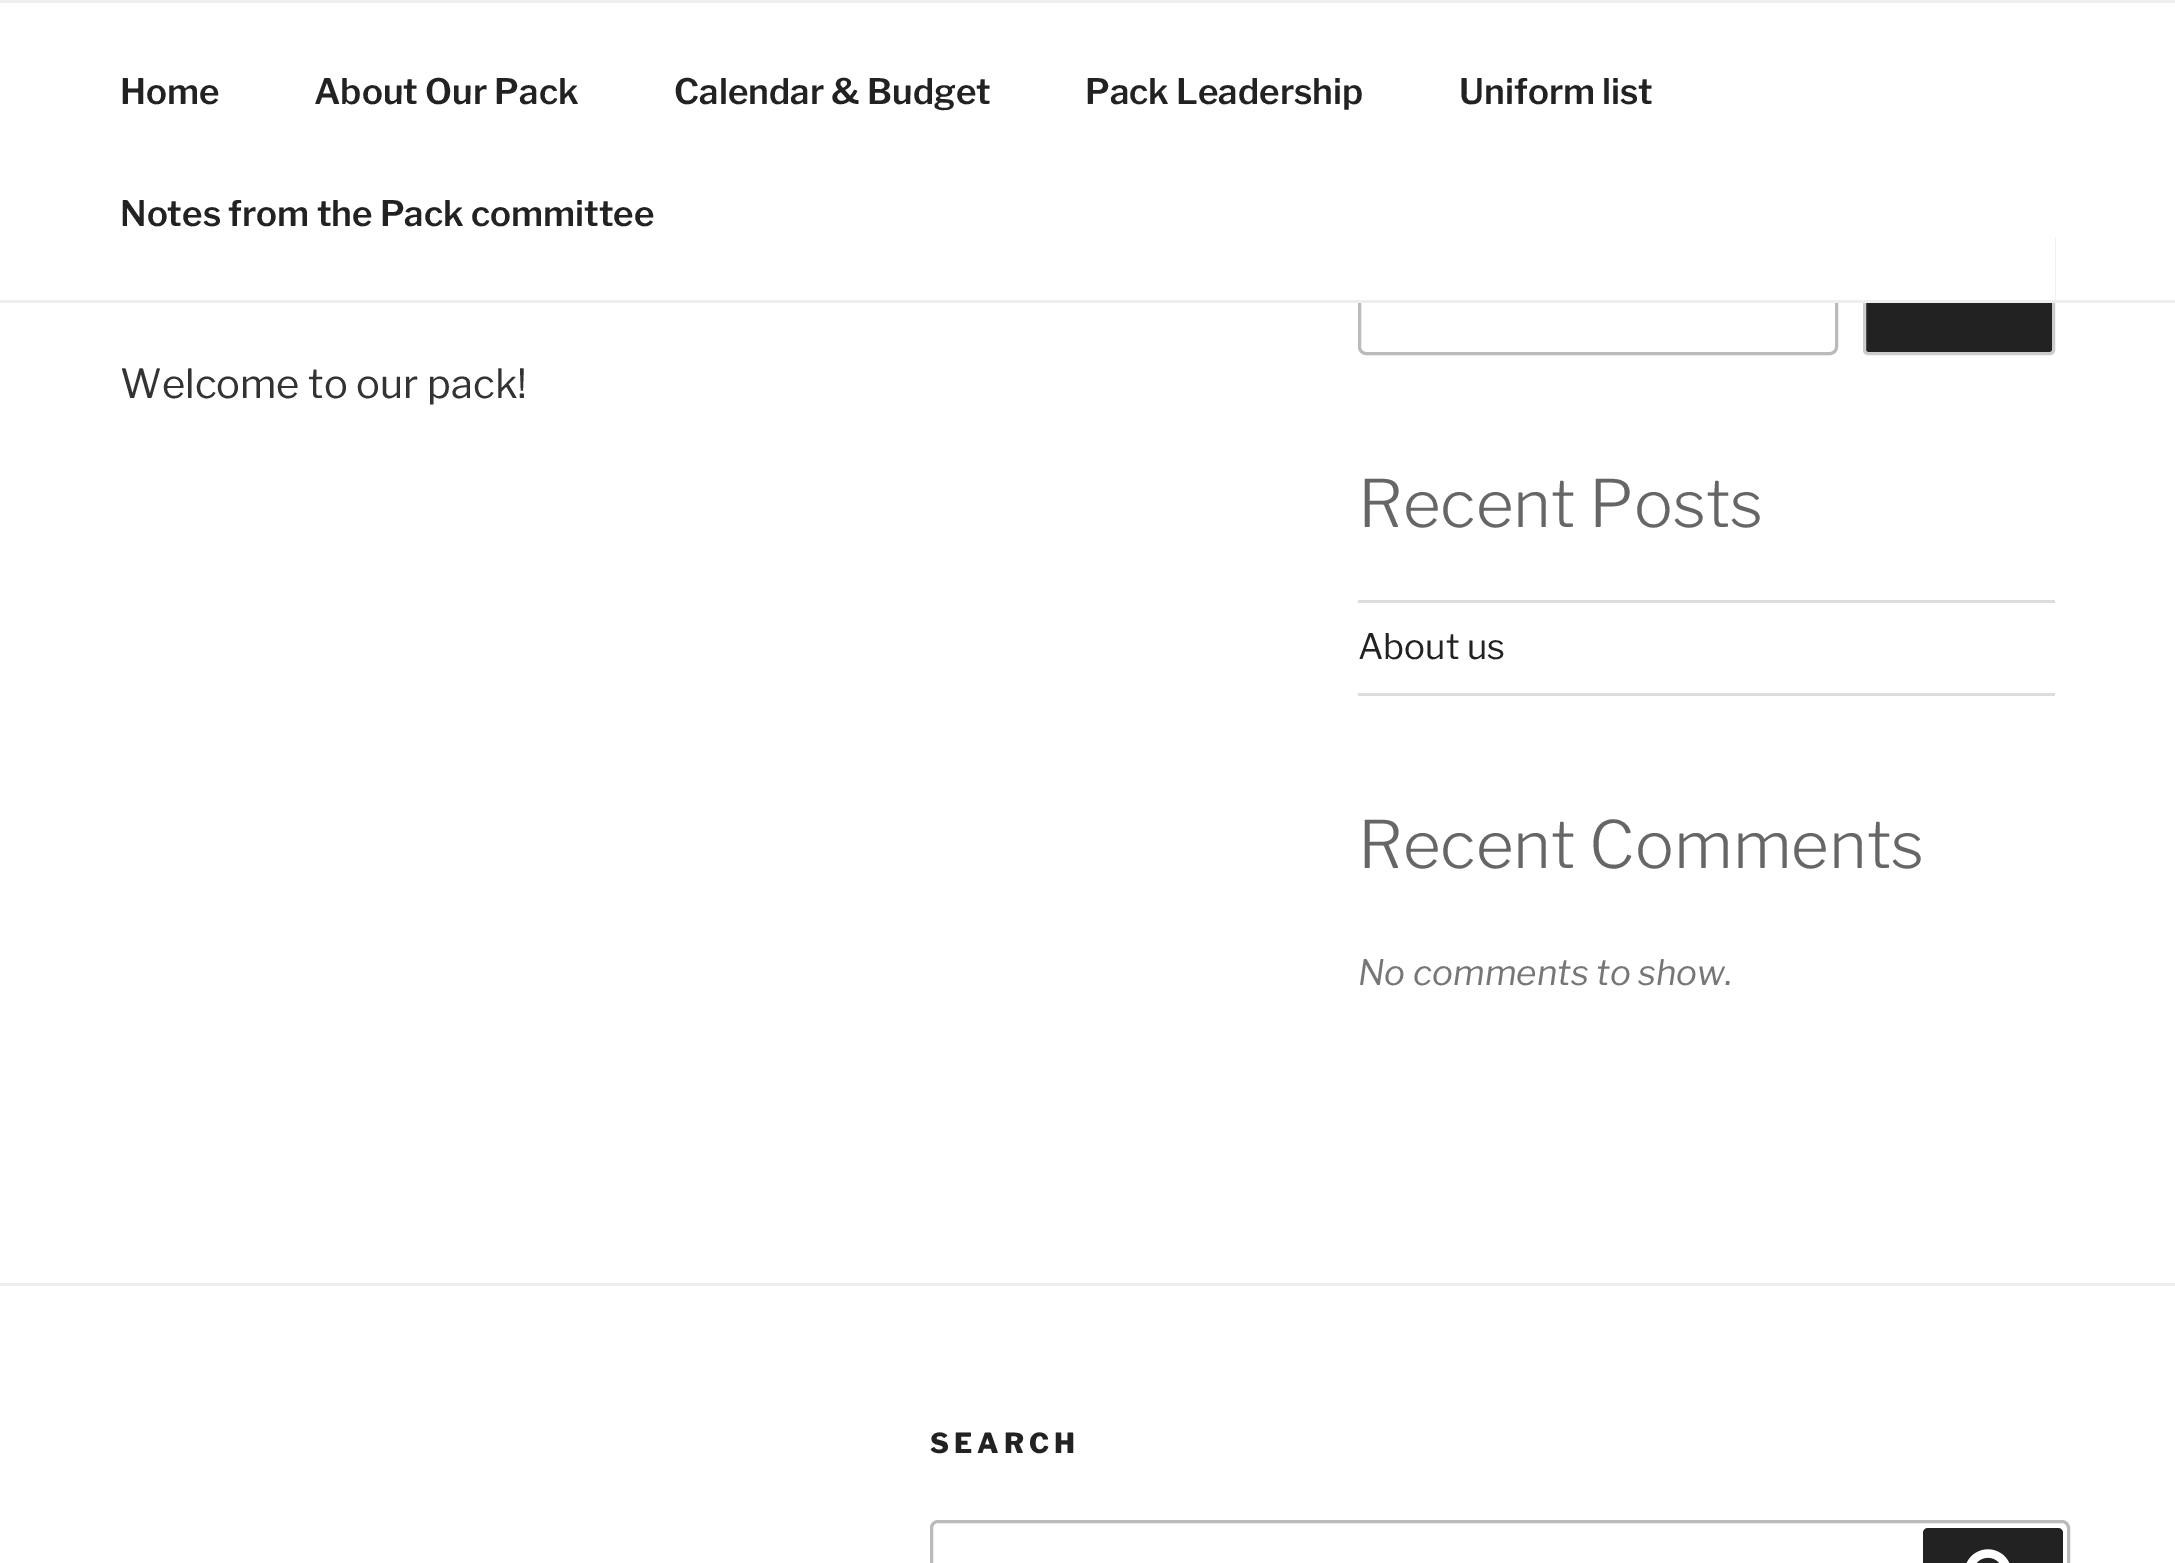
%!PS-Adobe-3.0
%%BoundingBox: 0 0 2175 1563
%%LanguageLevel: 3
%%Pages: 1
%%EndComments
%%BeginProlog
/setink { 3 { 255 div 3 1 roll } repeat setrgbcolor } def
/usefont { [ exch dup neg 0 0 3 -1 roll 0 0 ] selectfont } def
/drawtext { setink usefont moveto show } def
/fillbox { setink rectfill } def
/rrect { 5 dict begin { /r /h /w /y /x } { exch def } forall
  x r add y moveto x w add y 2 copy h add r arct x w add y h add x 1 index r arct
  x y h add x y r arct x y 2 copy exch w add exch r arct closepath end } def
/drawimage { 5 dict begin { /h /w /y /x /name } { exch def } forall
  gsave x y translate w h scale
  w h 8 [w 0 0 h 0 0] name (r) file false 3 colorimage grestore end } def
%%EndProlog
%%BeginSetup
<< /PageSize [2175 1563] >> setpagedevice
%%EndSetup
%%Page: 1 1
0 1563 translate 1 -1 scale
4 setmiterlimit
0 0 2175 1563 255 255 255 fillbox
187 187 187 setink
3 setlinewidth
1359.5 234.5 477 119 6.5 rrect stroke
34 34 34 setink
1864.5 234.5 189 119 3.5 rrect gsave fill grestore
204 204 204 setink
stroke
1358 233 697 67 255 255 255 fillbox
0 0 2175 3 238 238 238 fillbox
0 300 2175 3 238 238 238 fillbox
(Home) 120 104 /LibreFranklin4-Thin 35 34 34 34 drawtext
(About Our Pack) 314 104 /LibreFranklin4-Thin 35 34 34 34 drawtext
(Calendar & Budget) 674 104 /LibreFranklin4-Thin 35 34 34 34 drawtext
(Pack Leadership) 1085 104 /LibreFranklin4-Thin 35 34 34 34 drawtext
(Uniform list) 1459 104 /LibreFranklin4-Thin 35 34 34 34 drawtext
(Notes from the Pack committee) 120 226 /LibreFranklin4-Thin 35 34 34 34 drawtext
(Welcome to our pack!) 120 398 /LibreFranklin-Thin 40 51 51 51 drawtext
(Recent Posts) 1358 527 /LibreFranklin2-Thin 65 102 102 102 drawtext
1358 600 697 3 221 221 221 fillbox
1358 693 697 3 221 221 221 fillbox
(About us) 1358 659 /LibreFranklin-Thin 35 34 34 34 drawtext
(Recent Comments) 1358 868 /LibreFranklin2-Thin 65 102 102 102 drawtext
(No comments to show.) 1358 985 /LibreFranklin-ThinItalic 35 118 118 118 drawtext
0 1283 2175 3 238 238 238 fillbox
/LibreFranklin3-Thin 27.5 usefont
34 34 34 setink
930 1453 moveto 5 0 (SEARCH) ashow
187 187 187 setink
931.5 1521.5 1137 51 6.5 rrect stroke
34 34 34 setink
1923 1528 140 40 5 rrect fill
(assets/img1.rgb) 1966 1549 44 14 drawimage
showpage
%%EOF
